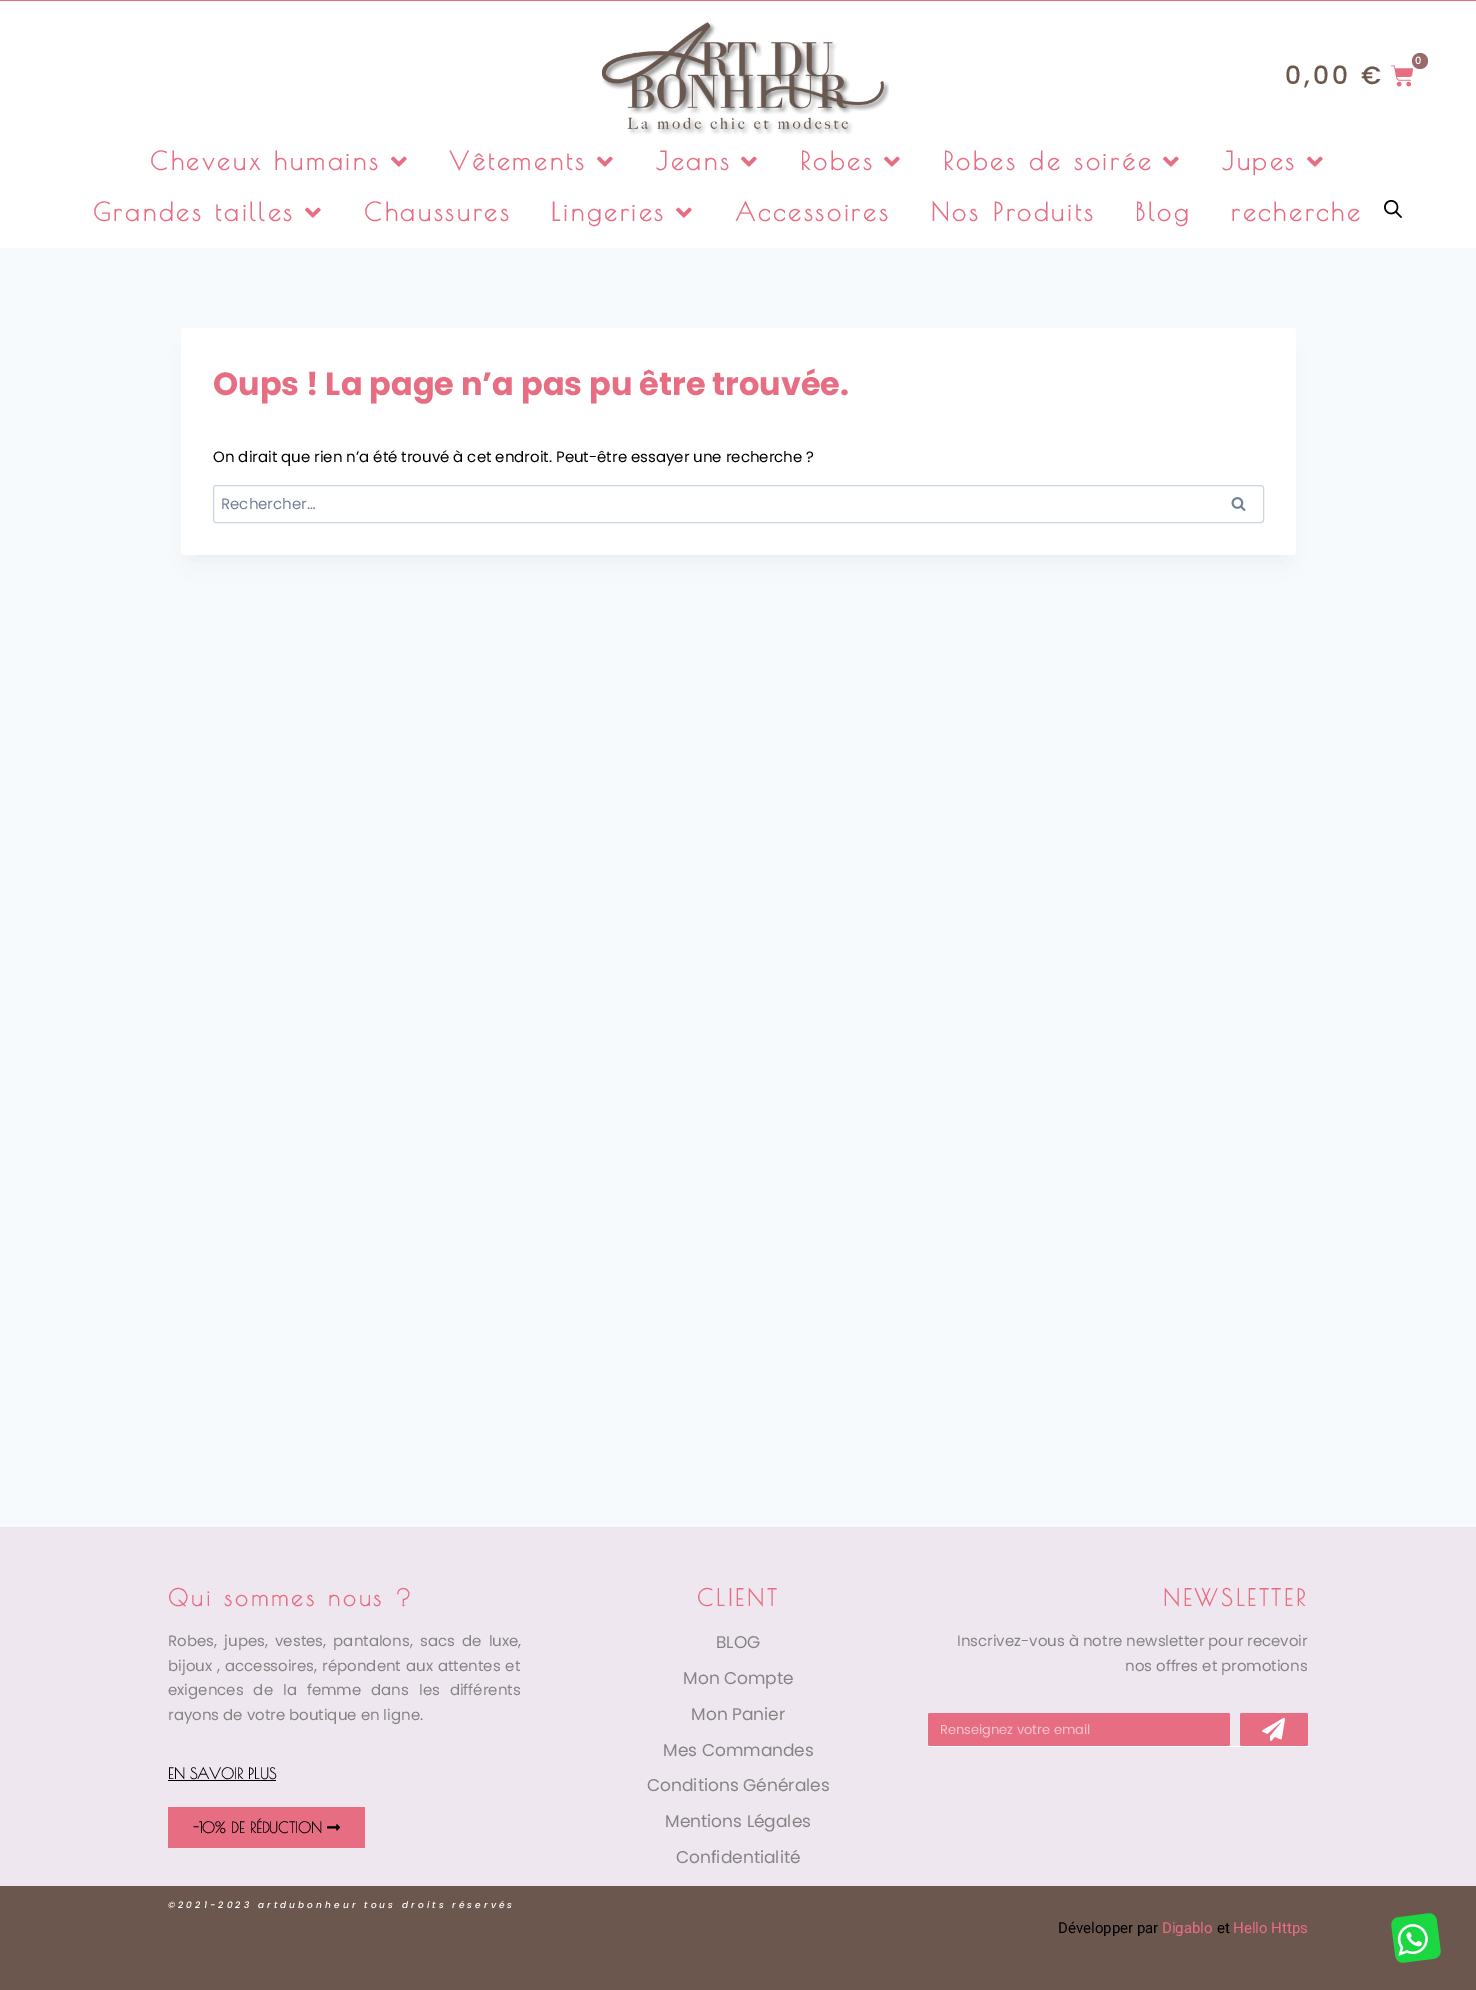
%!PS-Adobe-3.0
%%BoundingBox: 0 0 1476 1990
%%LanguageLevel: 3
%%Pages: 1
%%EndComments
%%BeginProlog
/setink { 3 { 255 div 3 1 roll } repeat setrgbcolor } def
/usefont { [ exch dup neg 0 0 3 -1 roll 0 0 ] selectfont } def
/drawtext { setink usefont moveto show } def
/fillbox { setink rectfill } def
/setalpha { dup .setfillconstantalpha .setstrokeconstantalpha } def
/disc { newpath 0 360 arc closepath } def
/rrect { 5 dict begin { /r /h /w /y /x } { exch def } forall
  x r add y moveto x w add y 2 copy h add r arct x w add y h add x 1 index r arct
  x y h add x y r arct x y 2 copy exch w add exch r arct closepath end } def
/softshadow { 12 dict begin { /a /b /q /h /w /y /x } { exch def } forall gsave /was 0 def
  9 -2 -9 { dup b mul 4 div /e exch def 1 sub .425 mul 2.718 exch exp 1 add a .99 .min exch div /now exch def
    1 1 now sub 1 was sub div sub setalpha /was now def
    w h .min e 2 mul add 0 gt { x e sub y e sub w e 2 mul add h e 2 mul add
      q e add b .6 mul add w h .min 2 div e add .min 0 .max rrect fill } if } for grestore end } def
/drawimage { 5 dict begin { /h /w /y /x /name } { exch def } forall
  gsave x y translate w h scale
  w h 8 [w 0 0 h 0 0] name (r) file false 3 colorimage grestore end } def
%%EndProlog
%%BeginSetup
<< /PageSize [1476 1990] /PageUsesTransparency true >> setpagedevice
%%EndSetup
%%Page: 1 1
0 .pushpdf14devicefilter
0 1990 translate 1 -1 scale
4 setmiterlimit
0 0 1476 1990 247 250 252 fillbox
0 1 1476 247 255 255 255 fillbox
0 0 1476 1 231 109 131 fillbox
(assets/img1.rgb) 602 22 287 113 drawimage
(assets/img2.rgb) 1391 65 22 22 drawimage
153 106 106 setink
1420 61 8 disc fill
/Poppins-Medium 10 usefont
255 255 255 setink
1415 64 moveto 3.1 0 (0) ashow
/Poppins-Medium 25 usefont
108 87 79 setink
1285 84 moveto 3.1 0 (0,00 €) ashow
/PoiretOne-Bold 25 usefont
231 109 131 setink
150 170 moveto 3.1 0 (Cheveux humains) ashow
(assets/img3.rgb) 391 156 16 11 drawimage
449 170 moveto 3.1 0 (Vêtements) ashow
(assets/img3.rgb) 597 156 16 11 drawimage
656 170 moveto 3.1 0 (Jeans) ashow
(assets/img3.rgb) 741 156 16 11 drawimage
800 170 moveto 3.1 0 (Robes) ashow
(assets/img3.rgb) 884 156 16 11 drawimage
943 170 moveto 3.1 0 (Robes de soirée) ashow
(assets/img3.rgb) 1163 156 16 11 drawimage
1222 170 moveto 3.1 0 (Jupes) ashow
(assets/img3.rgb) 1307 156 16 11 drawimage
93 221 moveto 3.1 0 (Grandes tailles) ashow
(assets/img3.rgb) 305 207 16 11 drawimage
364 221 moveto 3.1 0 (Chaussures) ashow
551 221 moveto 3.1 0 (Lingeries) ashow
(assets/img3.rgb) 676 207 16 11 drawimage
735 221 moveto 3.1 0 (Accessoires) ashow
931 221 moveto 3.1 0 (Nos Produits) ashow
1135 221 moveto 3.1 0 (Blog) ashow
1231 221 moveto 3.1 0 (recherche) ashow
(assets/img4.rgb) 1384 200 18 18 drawimage
0 0 0 setink
191 353 1095 207 0 12.5 0.05 softshadow
255 255 255 setink
181 328 1115 227 4 rrect fill
(Oups ! La page n’a pas pu être trouvée.) 213 395 /Poppins-Bold 32 231 109 131 drawtext
(On dirait que rien n’a été trouvé à cet endroit. Peut-être essayer une recherche ?) 213 462 /Poppins-Regular 15 0 0 0 drawtext
203 213 224 setink
213.5 485.5 1050 37 2.5 rrect stroke
(Rechercher…) 221 509 /Poppins-Regular 15 113 128 150 drawtext
(assets/img5.rgb) 1231 497 15 14 drawimage
0 1527 1476 359 239 231 239 fillbox
/PoiretOne-Bold 23 usefont
231 109 131 setink
168 1606 moveto 3.1 0 (Qui sommes nous ?) ashow
/Poppins-Regular 15 usefont
132 132 132 setink
168 1646 moveto 3.25 0 32 (Robes, jupes, vestes, pantalons, sacs de luxe,) widthshow
168 1671 moveto 1 0 32 (bijoux , accessoires, répondent aux attentes et) widthshow
168 1695 moveto 6 0 32 (exigences de la femme dans les différents) widthshow
(rayons de votre boutique en ligne.) 168 1720 /Poppins-Regular 15 132 132 132 drawtext
(EN SAVOIR PLUS) 168 1779 /PoiretOne-Bold 15 0 0 0 drawtext
168 1780 108 1 0 0 0 fillbox
168 1807 197 41 231 109 131 fillbox
(-10% DE RÉDUCTION) 193 1833 /PoiretOne-Bold 15 0 0 0 drawtext
(assets/img6.rgb) 327 1824 14 7 drawimage
/PoiretOne-Bold 23 usefont
231 109 131 setink
697 1606 moveto 3.1 0 (CLIENT) ashow
(BLOG) 716 1648 /Poppins-Regular 17 132 132 132 drawtext
(Mon Compte) 683 1684 /Poppins-Regular 17 132 132 132 drawtext
(Mon Panier) 691 1720 /Poppins-Regular 17 132 132 132 drawtext
(Mes Commandes) 663 1756 /Poppins-Regular 17 132 132 132 drawtext
(Conditions Générales) 647 1791 /Poppins-Regular 17 132 132 132 drawtext
(Mentions Légales) 665 1827 /Poppins-Regular 17 132 132 132 drawtext
(Confidentialité) 676 1863 /Poppins-Regular 17 132 132 132 drawtext
/PoiretOne-Bold 23 usefont
231 109 131 setink
1163 1606 moveto 3.1 0 (NEWSLETTER) ashow
(Inscrivez-vous à notre newsletter pour recevoir) 957 1646 /Poppins-Regular 15 132 132 132 drawtext
(nos offres et promotions) 1125 1671 /Poppins-Regular 15 132 132 132 drawtext
928 1746 380 1 255 255 255 fillbox
231 109 131 setink
928 1713 302 33 2 rrect fill
(Renseignez votre email) 940 1734 /Poppins-Regular 13 245 197 205 drawtext
231 109 131 setink
1240 1713 68 33 2 rrect fill
(assets/img7.rgb) 1262 1717 23 24 drawimage
0 1886 1476 104 108 87 79 fillbox
/Poppins-MediumItalic 9 usefont
255 255 255 setink
168 1908 moveto 3.1 0 (©2021-2023 artdubonheur tous droits réservés) ashow
(Développer par) 1058 1933 /Roboto-Regular 15 0 0 0 drawtext
(Digablo) 1162 1933 /Roboto-Regular 15 231 109 131 drawtext
(et) 1217 1933 /Roboto-Regular 15 0 0 0 drawtext
(Hello Https) 1233 1933 /Roboto-Regular 15 231 109 131 drawtext
(assets/img8.rgb) 1391 1913 50 50 drawimage
.poppdf14devicefilter showpage
%%EOF
